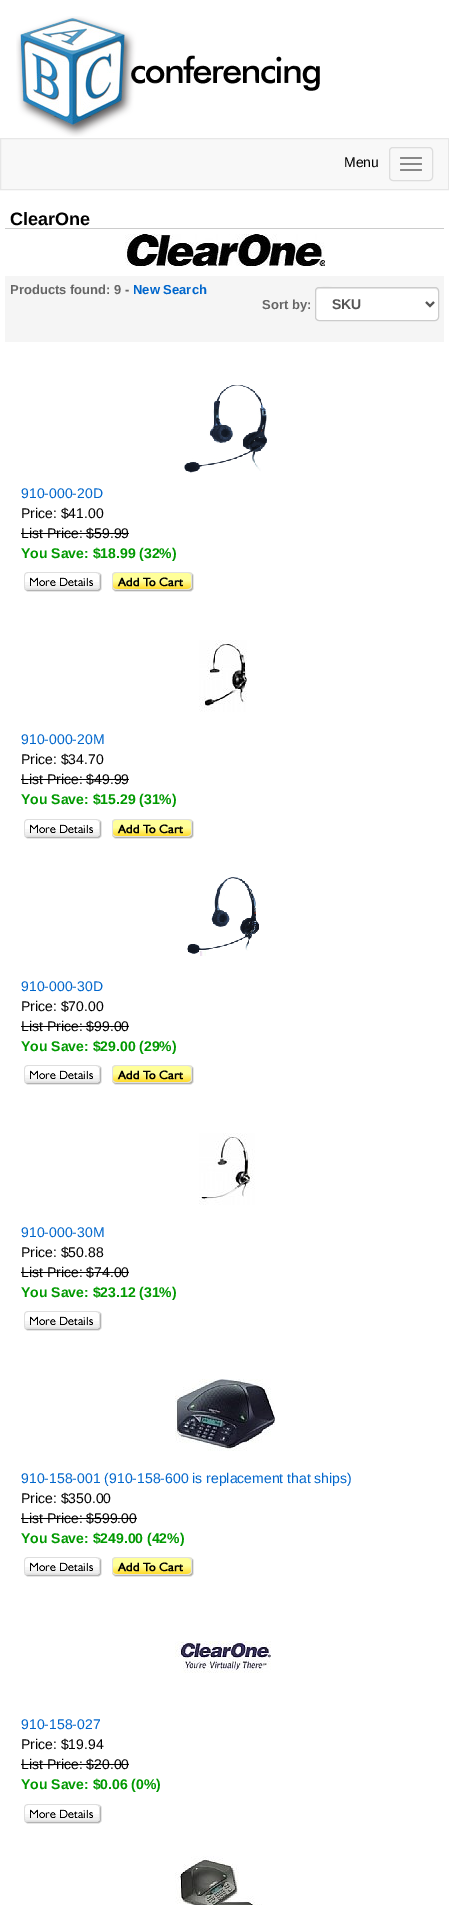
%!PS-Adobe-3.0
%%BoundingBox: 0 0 449 1905
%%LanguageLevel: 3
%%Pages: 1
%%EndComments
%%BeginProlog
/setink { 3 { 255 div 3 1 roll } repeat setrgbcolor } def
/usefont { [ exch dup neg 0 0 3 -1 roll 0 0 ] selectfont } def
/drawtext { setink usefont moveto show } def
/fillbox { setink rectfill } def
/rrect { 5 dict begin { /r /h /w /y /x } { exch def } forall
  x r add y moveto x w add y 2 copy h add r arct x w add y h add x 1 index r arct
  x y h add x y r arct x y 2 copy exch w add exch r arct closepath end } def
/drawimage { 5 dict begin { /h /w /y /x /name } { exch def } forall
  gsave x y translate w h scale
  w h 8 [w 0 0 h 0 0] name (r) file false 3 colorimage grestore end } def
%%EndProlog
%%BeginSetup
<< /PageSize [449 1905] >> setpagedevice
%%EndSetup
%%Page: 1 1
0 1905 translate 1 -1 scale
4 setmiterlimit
0 0 449 1905 255 255 255 fillbox
(assets/img1.rgb) 16 16 304 121 drawimage
248 248 248 setink
0.5 138.5 moveto 448.5 138.5 lineto 448.5 189.5 lineto 0.5 189.5 lineto closepath gsave fill grestore
231 231 231 setink
stroke
(Menu) 344 167 /LiberationSans-Regular 14 0 0 0 drawtext
221 221 221 setink
389.5 147.5 43 33 3.5 rrect stroke
136 136 136 setink
400 157 22 2 1 rrect fill
400 163 22 2 1 rrect fill
400 169 22 2 1 rrect fill
5 228 439 1 204 204 204 fillbox
(ClearOne) 10 225 /LiberationSans-Bold 18 0 0 0 drawtext
(assets/img2.rgb) 125 234 200 32 drawimage
5 276 439 66 245 245 245 fillbox
(Products found: 9 -) 10 294 /LiberationSans-Bold 13 102 102 102 drawtext
(New Search) 133 294 /LiberationSans-Bold 13 0 102 204 drawtext
(Sort by:) 262 309 /LiberationSans-Bold 13 102 102 102 drawtext
255 255 255 setink
315 287 124 34 4 rrect fill
236 236 236 setink
319 289 moveto 435 289 lineto 437 289 438 290 438 292 curveto 438 290 437 288 435 288 curveto 338 288 lineto 337 288 316 283 316 292 curveto 316 290 317 289 319 289 curveto closepath fill
204 204 204 setink
315.5 287.5 123 33 3.5 rrect stroke
85 85 85 setink
2 setlinewidth
426 302 moveto 430 306 lineto 434 302 lineto stroke
(SKU) 332 309 /LiberationSans-Bold 14 85 85 85 drawtext
(assets/img3.rgb) 184 385 83 88 drawimage
(910-000-20D) 21 498 /LiberationSans-Regular 14 0 102 204 drawtext
(Price: $41.00) 21 518 /LiberationSans-Regular 14 0 0 0 drawtext
(List Price: $59.99) 21 538 /LiberationSans-Regular 14 0 0 0 drawtext
21 533 108 1 0 0 0 fillbox
(You Save: $18.99 \(32%\)) 21 558 /LiberationSans-Bold 14 0 153 0 drawtext
(assets/img4.rgb) 24 572 78 20 drawimage
(assets/img5.rgb) 112 572 82 20 drawimage
(assets/img6.rgb) 199 640 48 72 drawimage
(910-000-20M) 21 744 /LiberationSans-Regular 14 0 102 204 drawtext
(Price: $34.70) 21 764 /LiberationSans-Regular 14 0 0 0 drawtext
(List Price: $49.99) 21 784 /LiberationSans-Regular 14 0 0 0 drawtext
21 779 108 1 0 0 0 fillbox
(You Save: $15.29 \(31%\)) 21 804 /LiberationSans-Bold 14 0 153 0 drawtext
(assets/img4.rgb) 24 819 78 20 drawimage
(assets/img5.rgb) 112 819 82 20 drawimage
(assets/img7.rgb) 187 877 72 79 drawimage
(910-000-30D) 21 991 /LiberationSans-Regular 14 0 102 204 drawtext
(Price: $70.00) 21 1011 /LiberationSans-Regular 14 0 0 0 drawtext
(List Price: $99.00) 21 1031 /LiberationSans-Regular 14 0 0 0 drawtext
21 1026 108 1 0 0 0 fillbox
(You Save: $29.00 \(29%\)) 21 1051 /LiberationSans-Bold 14 0 153 0 drawtext
(assets/img4.rgb) 24 1065 78 20 drawimage
(assets/img5.rgb) 112 1065 82 20 drawimage
(assets/img8.rgb) 199 1133 56 72 drawimage
(910-000-30M) 21 1237 /LiberationSans-Regular 14 0 102 204 drawtext
(Price: $50.88) 21 1257 /LiberationSans-Regular 14 0 0 0 drawtext
(List Price: $74.00) 21 1277 /LiberationSans-Regular 14 0 0 0 drawtext
21 1272 108 1 0 0 0 fillbox
(You Save: $23.12 \(31%\)) 21 1297 /LiberationSans-Bold 14 0 153 0 drawtext
(assets/img4.rgb) 24 1311 78 20 drawimage
(assets/img9.rgb) 175 1379 100 72 drawimage
(910-158-001 \(910-158-600 is replacement that ships\)) 21 1483 /LiberationSans-Regular 14 0 102 204 drawtext
(Price: $350.00) 21 1503 /LiberationSans-Regular 14 0 0 0 drawtext
(List Price: $599.00) 21 1523 /LiberationSans-Regular 14 0 0 0 drawtext
21 1518 116 1 0 0 0 fillbox
(You Save: $249.00 \(42%\)) 21 1543 /LiberationSans-Bold 14 0 153 0 drawtext
(assets/img4.rgb) 24 1557 78 20 drawimage
(assets/img5.rgb) 112 1557 82 20 drawimage
(assets/img10.rgb) 175 1641 96 32 drawimage
(910-158-027) 21 1729 /LiberationSans-Regular 14 0 102 204 drawtext
(Price: $19.94) 21 1749 /LiberationSans-Regular 14 0 0 0 drawtext
(List Price: $20.00) 21 1769 /LiberationSans-Regular 14 0 0 0 drawtext
21 1764 108 1 0 0 0 fillbox
(You Save: $0.06 \(0%\)) 21 1789 /LiberationSans-Bold 14 0 153 0 drawtext
(assets/img4.rgb) 24 1804 78 20 drawimage
(assets/img11.rgb) 175 1856 87 49 drawimage
showpage
%%EOF
